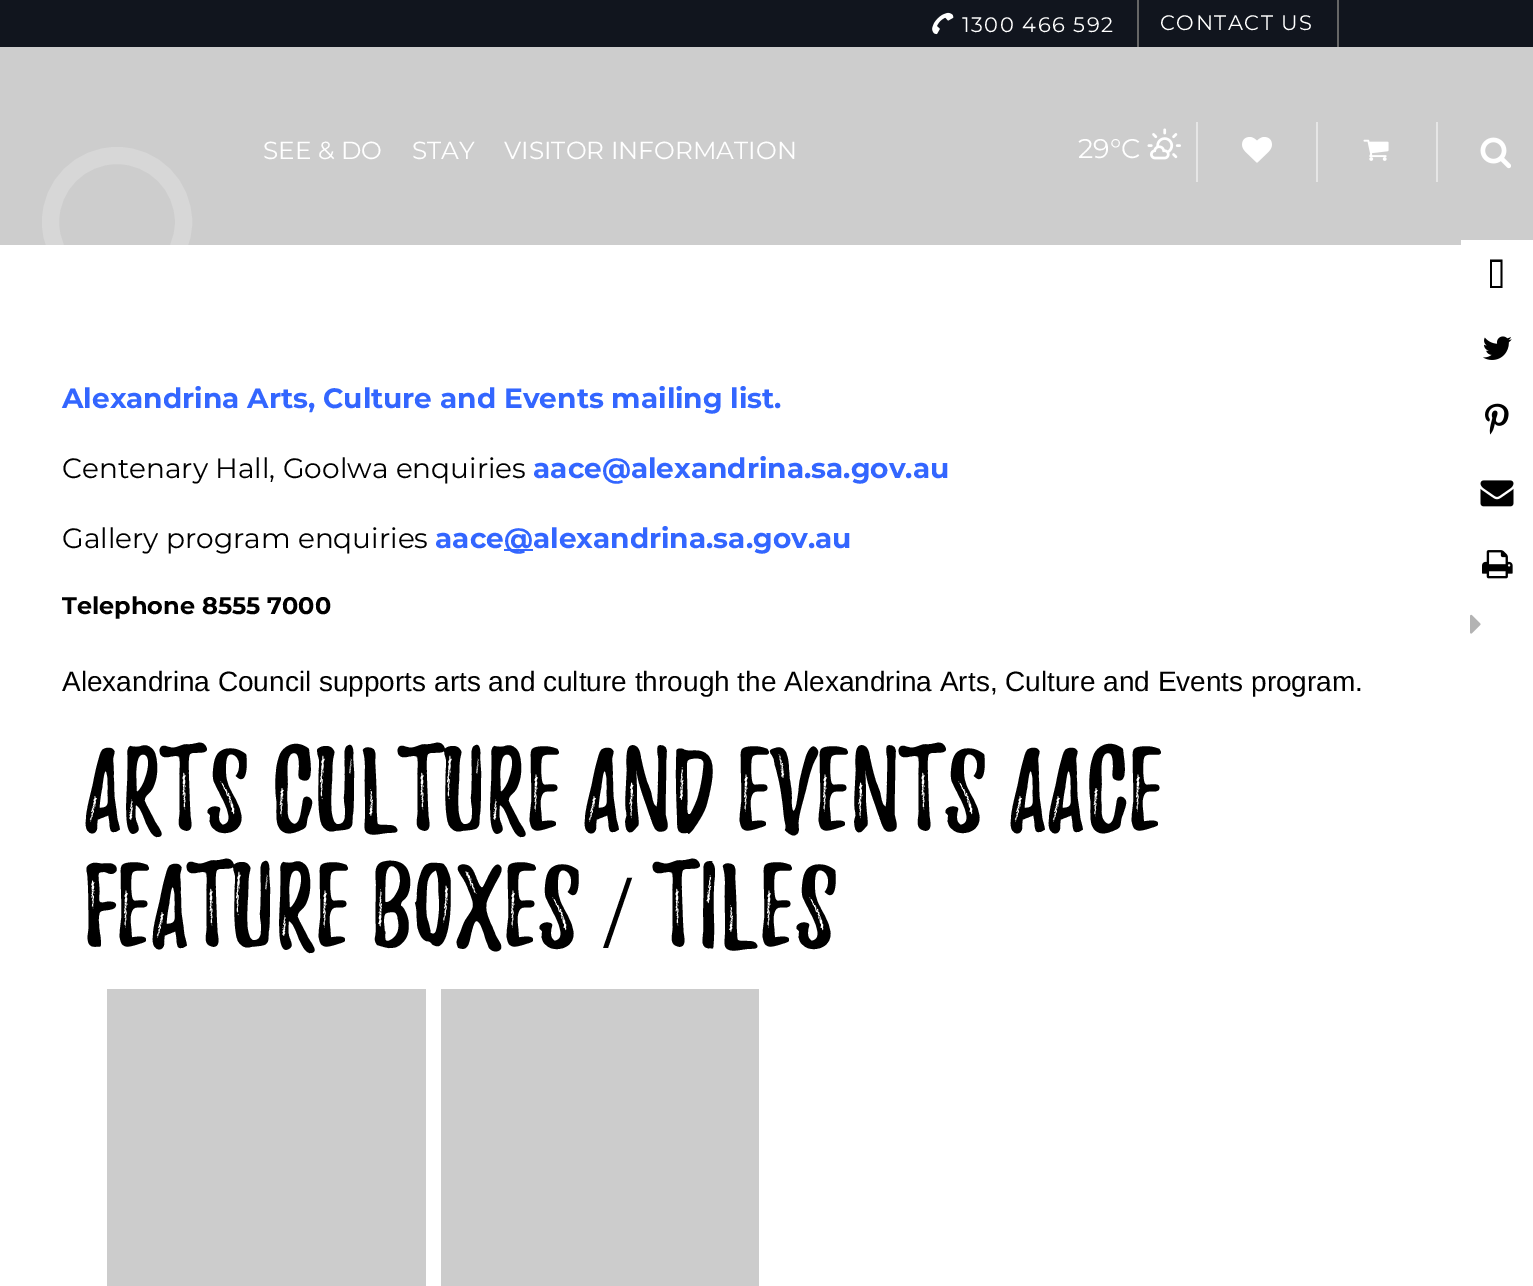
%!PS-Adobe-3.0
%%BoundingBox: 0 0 1533 1286
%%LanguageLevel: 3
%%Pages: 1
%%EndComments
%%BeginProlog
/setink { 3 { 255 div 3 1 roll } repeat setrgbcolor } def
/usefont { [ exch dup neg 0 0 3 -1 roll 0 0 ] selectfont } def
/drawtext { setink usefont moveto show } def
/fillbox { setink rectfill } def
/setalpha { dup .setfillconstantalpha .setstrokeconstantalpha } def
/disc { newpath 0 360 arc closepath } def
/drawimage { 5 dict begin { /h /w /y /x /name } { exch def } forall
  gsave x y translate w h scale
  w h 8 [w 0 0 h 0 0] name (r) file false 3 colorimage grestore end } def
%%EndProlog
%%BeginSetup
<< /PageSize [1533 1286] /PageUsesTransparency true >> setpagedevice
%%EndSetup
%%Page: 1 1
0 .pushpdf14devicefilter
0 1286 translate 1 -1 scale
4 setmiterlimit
0 0 1533 1286 255 255 255 fillbox
0 47 1533 198 205 205 205 fillbox
0 0 1533 47 17 21 30 fillbox
1137 0 2 47 102 102 102 fillbox
(assets/img1.rgb) 932 12 22 23 drawimage
/Montserrat-Regular 21 usefont
255 255 255 setink
962 32 moveto 1.5 0 (1300 466 592) ashow
1337 0 2 47 102 102 102 fillbox
255 255 255 setink
1160 30 moveto 1.5 0 (CONTACT US) ashow
0.2 setalpha
17 setlinewidth
117 222 66.5 disc stroke
1 setalpha
(SEE & DO) 263 159 /Montserrat-Regular 24.75 255 255 255 drawtext
(STAY) 412 159 /Montserrat-Regular 24.75 255 255 255 drawtext
(VISITOR INFORMATION) 504 159 /Montserrat-Regular 24.75 255 255 255 drawtext
(29°C) 1078 158 /Montserrat-Regular 27 255 255 255 drawtext
(assets/img2.rgb) 1147 128 34 32 drawimage
1196 122 2 60 230 230 230 fillbox
(assets/img3.rgb) 1242 137 30 26 drawimage
1316 122 2 60 230 230 230 fillbox
(assets/img4.rgb) 1363 139 26 22 drawimage
1436 122 2 60 230 230 230 fillbox
(assets/img5.rgb) 1480 137 31 32 drawimage
(Alexandrina Arts, Culture and Events mailing list.) 62 408 /Montserrat-Bold 28 51 102 255 drawtext
(Centenary Hall, Goolwa enquiries) 62 478 /Montserrat-Regular 28 0 0 0 drawtext
(aace@alexandrina.sa.gov.au) 533 478 /Montserrat-Bold 28 51 102 255 drawtext
(Gallery program enquiries) 62 548 /Montserrat-Regular 28 0 0 0 drawtext
(aace) 435 548 /Montserrat-Bold 28 51 102 255 drawtext
504 549 29 2 51 102 255 fillbox
(@alexandrina.sa.gov.au) 504 548 /Montserrat-Bold 28 51 102 255 drawtext
(Telephone 8555 7000) 62 614 /Montserrat-Bold 24 0 0 0 drawtext
(Alexandrina Council supports arts and culture through the Alexandrina Arts, Culture and Events program.) 62 691 /LiberationSans-Regular 28 0 0 0 drawtext
(Arts Culture and Events AACE) 84 831 /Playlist-Medium 105 0 0 0 drawtext
(Feature Boxes) 84 947 /Playlist-Medium 105 0 0 0 drawtext
(/) 603 947 /LiberationSerif-Regular 105 0 0 0 drawtext
(Tiles) 655 947 /Playlist-Medium 105 0 0 0 drawtext
107 989 319 297 204 204 204 fillbox
441 989 318 297 204 204 204 fillbox
1461 240 72 5 255 255 255 fillbox
0 0 0 setink
1492 286 moveto 1492 262 lineto 1500.5 262 lineto 1500.5 286 lineto closepath 1490 288 moveto 1502.5 288 lineto 1502.5 259.5 lineto 1490 259.5 lineto closepath fill
(assets/img6.rgb) 1483 336 29 24 drawimage
(assets/img7.rgb) 1485 403 24 32 drawimage
(assets/img8.rgb) 1480 480 34 27 drawimage
(assets/img9.rgb) 1482 550 31 29 drawimage
(assets/img10.rgb) 1470 614 11 20 drawimage
.poppdf14devicefilter showpage
%%EOF
